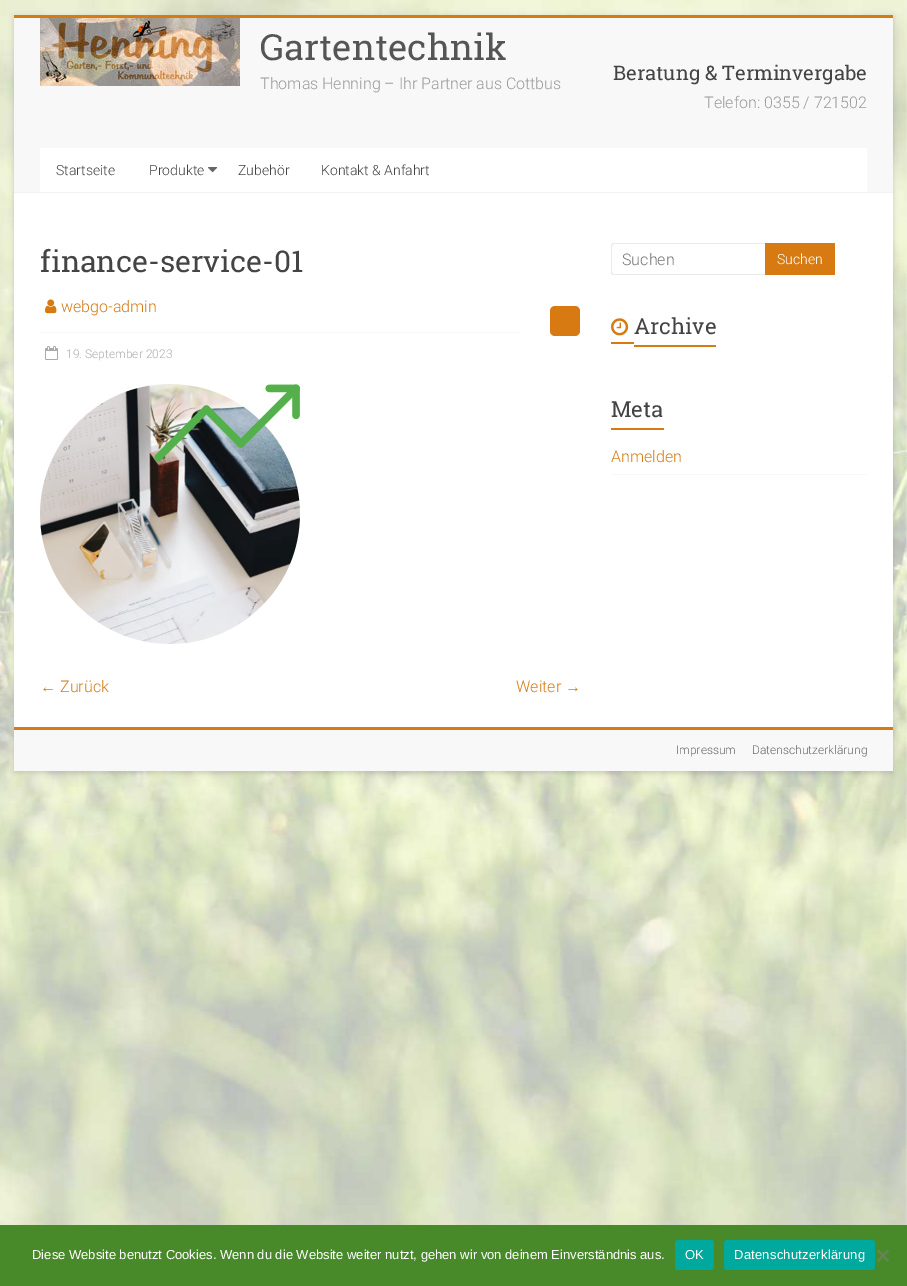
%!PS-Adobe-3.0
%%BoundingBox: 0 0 907 1286
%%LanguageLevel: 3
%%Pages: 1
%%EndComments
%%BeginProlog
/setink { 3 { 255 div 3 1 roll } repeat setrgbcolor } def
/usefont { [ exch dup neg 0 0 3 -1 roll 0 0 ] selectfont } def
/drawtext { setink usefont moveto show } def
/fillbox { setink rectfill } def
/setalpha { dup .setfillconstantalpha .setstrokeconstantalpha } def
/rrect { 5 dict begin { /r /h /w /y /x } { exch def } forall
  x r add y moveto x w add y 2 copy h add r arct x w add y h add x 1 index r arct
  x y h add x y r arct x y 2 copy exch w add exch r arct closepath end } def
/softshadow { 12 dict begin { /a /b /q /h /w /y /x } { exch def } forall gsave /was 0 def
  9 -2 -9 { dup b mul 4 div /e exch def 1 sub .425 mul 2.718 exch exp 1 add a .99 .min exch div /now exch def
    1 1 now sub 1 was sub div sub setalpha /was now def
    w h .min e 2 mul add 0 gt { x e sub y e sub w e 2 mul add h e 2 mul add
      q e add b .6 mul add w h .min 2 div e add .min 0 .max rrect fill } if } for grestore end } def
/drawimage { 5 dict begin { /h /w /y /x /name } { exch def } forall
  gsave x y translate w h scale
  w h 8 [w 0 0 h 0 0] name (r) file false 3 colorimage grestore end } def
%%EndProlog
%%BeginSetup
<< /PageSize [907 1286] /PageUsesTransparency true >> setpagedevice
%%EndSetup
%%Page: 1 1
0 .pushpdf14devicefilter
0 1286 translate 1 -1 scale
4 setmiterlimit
0 0 907 1286 255 255 255 fillbox
(assets/img1.rgb) 0 0 907 1225 drawimage
100 100 100 setink
14 17 879 756 0 3 0.3 softshadow
14 193 879 534 255 255 255 fillbox
14 15 879 3 214 122 17 fillbox
14 18 879 174 248 248 248 fillbox
14 192 879 1 242 242 242 fillbox
(assets/img2.rgb) 40 18 200 68 drawimage
(Gartentechnik) 260 60 /RobotoSlab-Regular 36 85 85 85 drawtext
(Thomas Henning – Ihr Partner aus Cottbus) 260 89 /Roboto-Light 16 153 153 153 drawtext
(Beratung & Terminvergabe) 613 80 /RobotoSlab-Regular 20 68 68 68 drawtext
(Telefon: 0355 / 721502) 704 108 /Roboto-Light 16 153 153 153 drawtext
40 148 827 44 255 255 255 fillbox
(Startseite) 56 175 /Roboto-Light 14 68 68 68 drawtext
(Produkte) 149 175 /Roboto-Light 14 68 68 68 drawtext
(assets/img3.rgb) 208 167 10 6 drawimage
(Zubehör) 238 175 /Roboto-Light 14 68 68 68 drawtext
(Kontakt & Anfahrt) 321 175 /Roboto-Light 14 68 68 68 drawtext
(finance-service-01) 40 272 /RobotoSlab-Regular 30 68 68 68 drawtext
(assets/img4.rgb) 45 299 12 15 drawimage
(webgo-admin) 61 312 /Roboto-Light 16 214 122 17 drawtext
40 332 481 1 248 248 248 fillbox
214 122 17 setink
550 306 30 30 5 rrect fill
(assets/img5.rgb) 45 346 13 14 drawimage
(19. September 2023) 66 358 /Roboto-Light 12 170 170 170 drawtext
(assets/img6.rgb) 40 384 260 260 drawimage
(←) 40 692 /LiberationSans-Regular 16 214 122 17 drawtext
(Zurück) 60 692 /Roboto-Light 16 214 122 17 drawtext
(Weiter) 516 692 /Roboto-Light 16 214 122 17 drawtext
(→) 565 692 /LiberationSans-Regular 16 214 122 17 drawtext
234 234 234 setink
614 243 moveto 765 243 lineto 765 275 lineto 614 275 lineto 612 275 611 274 611 272 curveto 611 246 lineto 611 244 612 243 614 243 curveto closepath 614 244 moveto 765 244 lineto 765 274 lineto 614 274 lineto 613 274 612 273 612 272 curveto 612 246 lineto 612 245 613 244 614 244 curveto closepath eofill
(Suchen) 622 265 /Roboto-Light 16 117 117 117 drawtext
765 243 70 32 214 122 17 fillbox
(Suchen) 777 264 /Roboto-Light 14 255 255 255 drawtext
(assets/img7.rgb) 611 318 18 18 drawimage
(Archive) 634 334 /RobotoSlab-Regular 22 68 68 68 drawtext
611 342 23 2 214 122 17 fillbox
634 345 82 2 214 122 17 fillbox
(Meta) 611 417 /RobotoSlab-Regular 22 68 68 68 drawtext
611 428 53 2 214 122 17 fillbox
611 474 256 1 248 248 248 fillbox
(Anmelden) 611 462 /Roboto-Light 16 214 122 17 drawtext
14 730 879 41 248 248 248 fillbox
14 727 879 3 214 122 17 fillbox
(Impressum) 676 754 /Roboto-Light 12 102 102 102 drawtext
(Datenschutzerklärung) 752 754 /Roboto-Light 12 102 102 102 drawtext
0 1225 907 61 72 137 42 fillbox
(Diese Website benutzt Cookies. Wenn du die Website weiter nutzt, gehen wir von deinem Einverständnis aus.) 32 1259 /LiberationSans-Regular 13 255 255 255 drawtext
0 169 157 setink
675 1240 39 30 3 rrect fill
255 255 255 setink
685 1259 moveto 0.25 0 (OK) ashow
0 169 157 setink
724 1240 151 30 3 rrect fill
255 255 255 setink
734 1259 moveto 0.25 0 (Datenschutzerklärung) ashow
100 133 85 setink
887.5 1249.5 moveto 889 1251 lineto 878.5 1262 lineto 877 1260.5 lineto closepath fill
877 1251 moveto 878.5 1249.5 lineto 889 1260.5 lineto 887.5 1262 lineto closepath fill
.poppdf14devicefilter showpage
%%EOF
